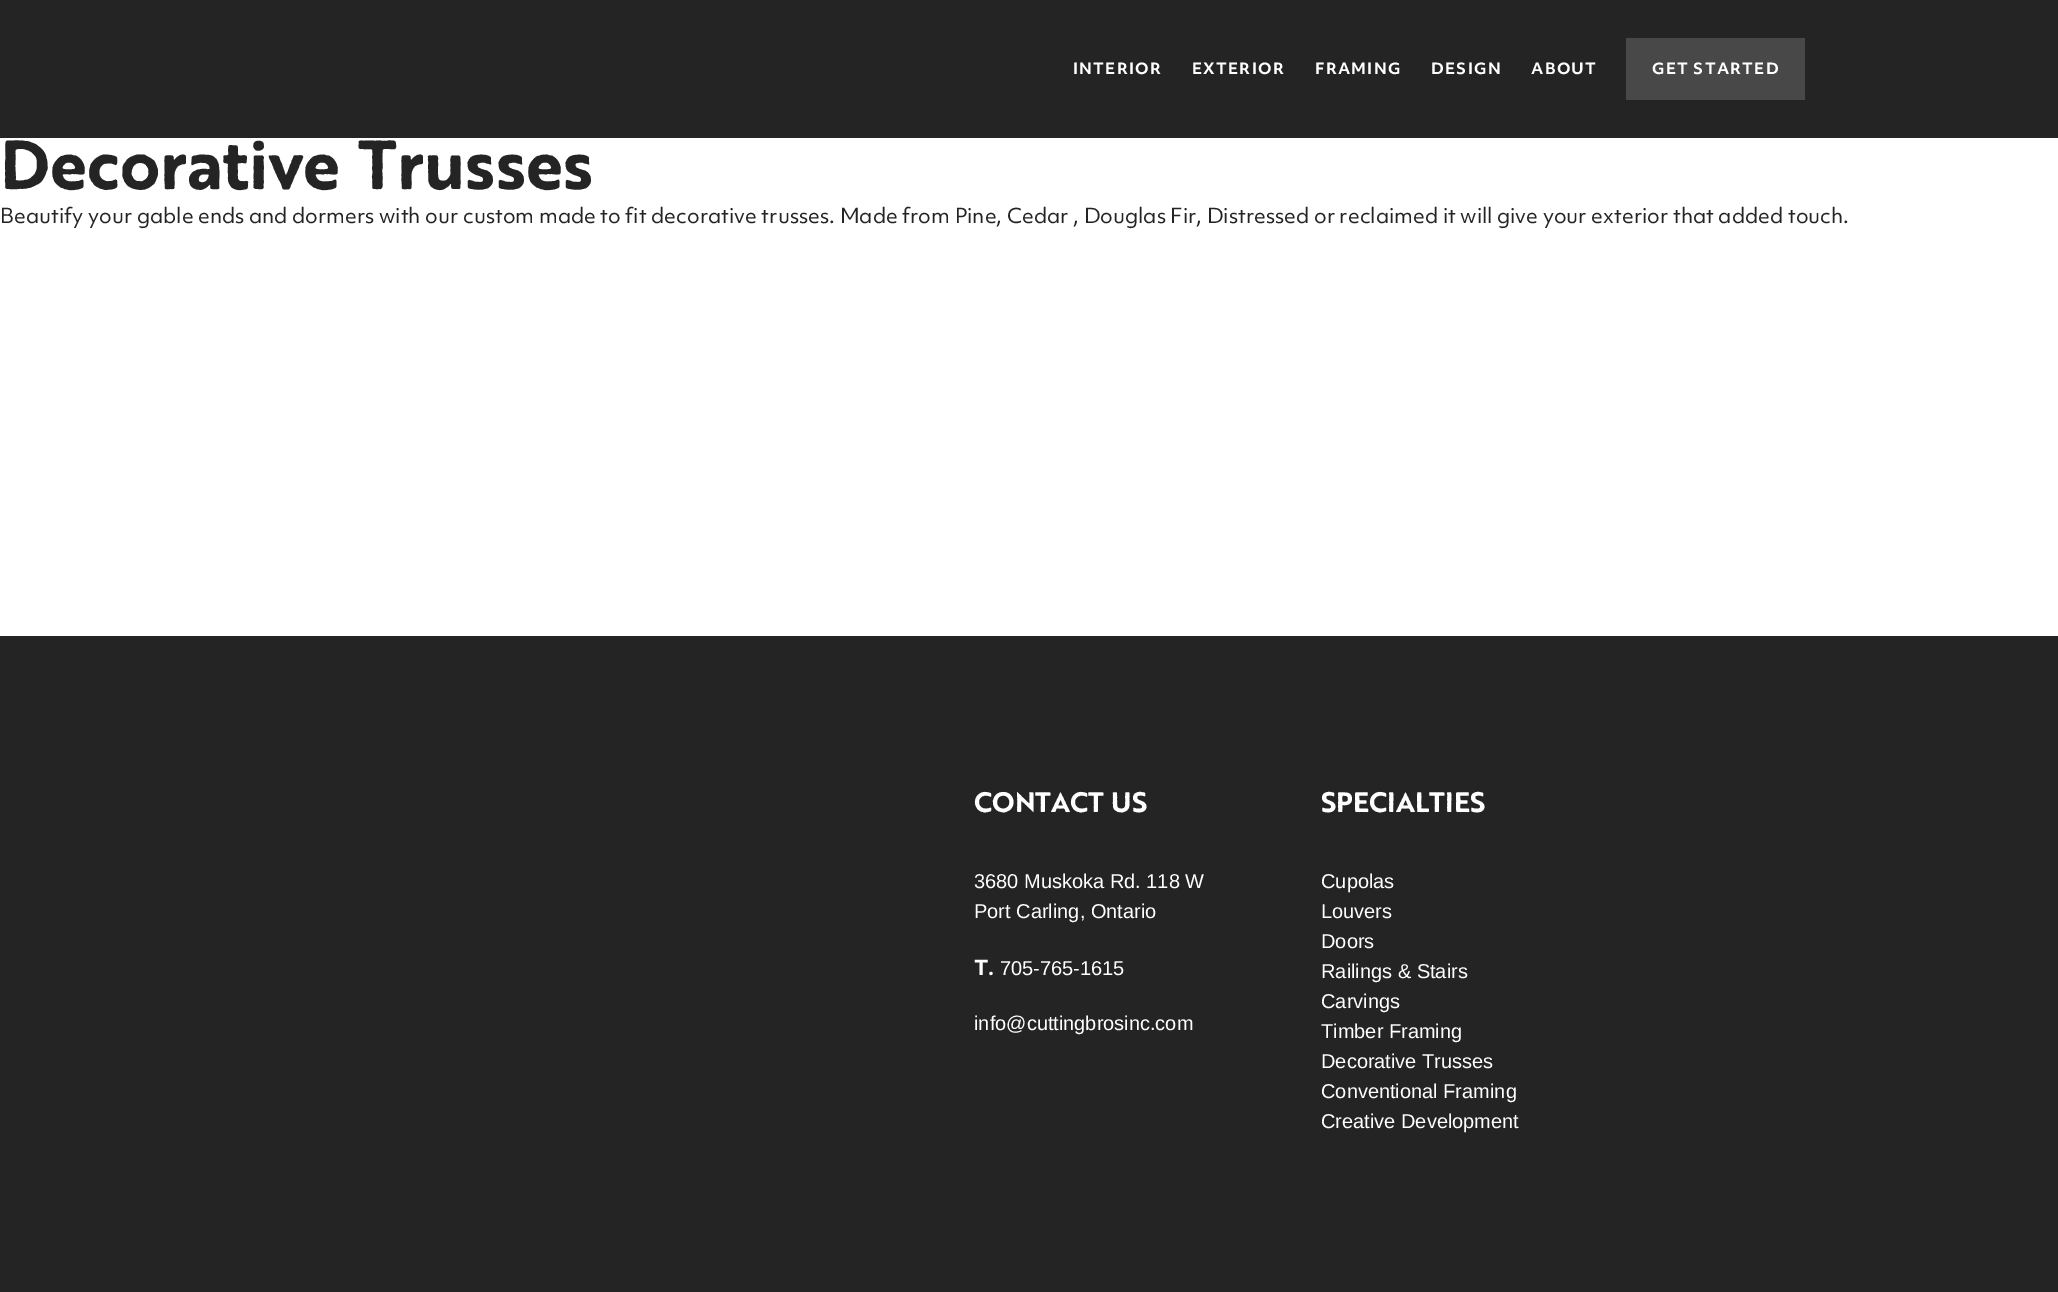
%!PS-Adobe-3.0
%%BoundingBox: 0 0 2058 1292
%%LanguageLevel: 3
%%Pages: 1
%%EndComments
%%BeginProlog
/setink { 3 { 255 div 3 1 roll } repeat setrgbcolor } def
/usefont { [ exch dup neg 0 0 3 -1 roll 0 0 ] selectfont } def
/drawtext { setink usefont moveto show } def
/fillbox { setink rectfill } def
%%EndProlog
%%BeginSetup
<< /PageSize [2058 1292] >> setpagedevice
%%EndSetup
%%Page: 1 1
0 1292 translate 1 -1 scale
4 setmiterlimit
0 0 2058 1292 255 255 255 fillbox
0 0 2058 138 36 36 36 fillbox
/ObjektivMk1-Bold 15 usefont
255 255 255 setink
1073 74 moveto 1.25 0 (INTERIOR) ashow
1192 74 moveto 1.25 0 (EXTERIOR) ashow
1315 74 moveto 1.25 0 (FRAMING) ashow
1431 74 moveto 1.25 0 (DESIGN) ashow
1531 74 moveto 1.25 0 (ABOUT) ashow
1626 38 179 62 72 72 72 fillbox
255 255 255 setink
1652 74 moveto 1.25 0 (GET STARTED) ashow
(Decorative Trusses) 0 189 /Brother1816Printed-Bold 67.5 36 36 36 drawtext
(Beautify your gable ends and dormers with our custom made to fit decorative trusses. Made from Pine, Cedar , Douglas Fir, Distressed or reclaimed it will give your exterior that added touch.) 0 223 /ObjektivMk1-Regular 20 36 36 36 drawtext
0 636 2058 656 36 36 36 fillbox
(CONTACT US) 974 812 /Brother1816Printed-Bold 27.5 255 255 255 drawtext
(3680 Muskoka Rd. 118 W) 974 888 /LiberationSans-Regular 20 255 255 255 drawtext
(Port Carling, Ontario) 974 918 /LiberationSans-Regular 20 255 255 255 drawtext
(T.) 974 975 /ObjektivMk1-Bold 20 255 255 255 drawtext
(705-765-1615) 1000 975 /LiberationSans-Regular 20 255 255 255 drawtext
(info@cuttingbrosinc.com) 974 1030 /LiberationSans-Regular 20 255 255 255 drawtext
(SPECIALTIES) 1321 812 /Brother1816Printed-Bold 27.5 255 255 255 drawtext
(Cupolas) 1321 888 /LiberationSans-Regular 20 255 255 255 drawtext
(Louvers) 1321 918 /LiberationSans-Regular 20 255 255 255 drawtext
(Doors) 1321 948 /LiberationSans-Regular 20 255 255 255 drawtext
(Railings & Stairs) 1321 978 /LiberationSans-Regular 20 255 255 255 drawtext
(Carvings) 1321 1008 /LiberationSans-Regular 20 255 255 255 drawtext
(Timber Framing) 1321 1038 /LiberationSans-Regular 20 255 255 255 drawtext
(Decorative Trusses) 1321 1068 /LiberationSans-Regular 20 255 255 255 drawtext
(Conventional Framing) 1321 1098 /LiberationSans-Regular 20 255 255 255 drawtext
(Creative Development) 1321 1128 /LiberationSans-Regular 20 255 255 255 drawtext
showpage
%%EOF
